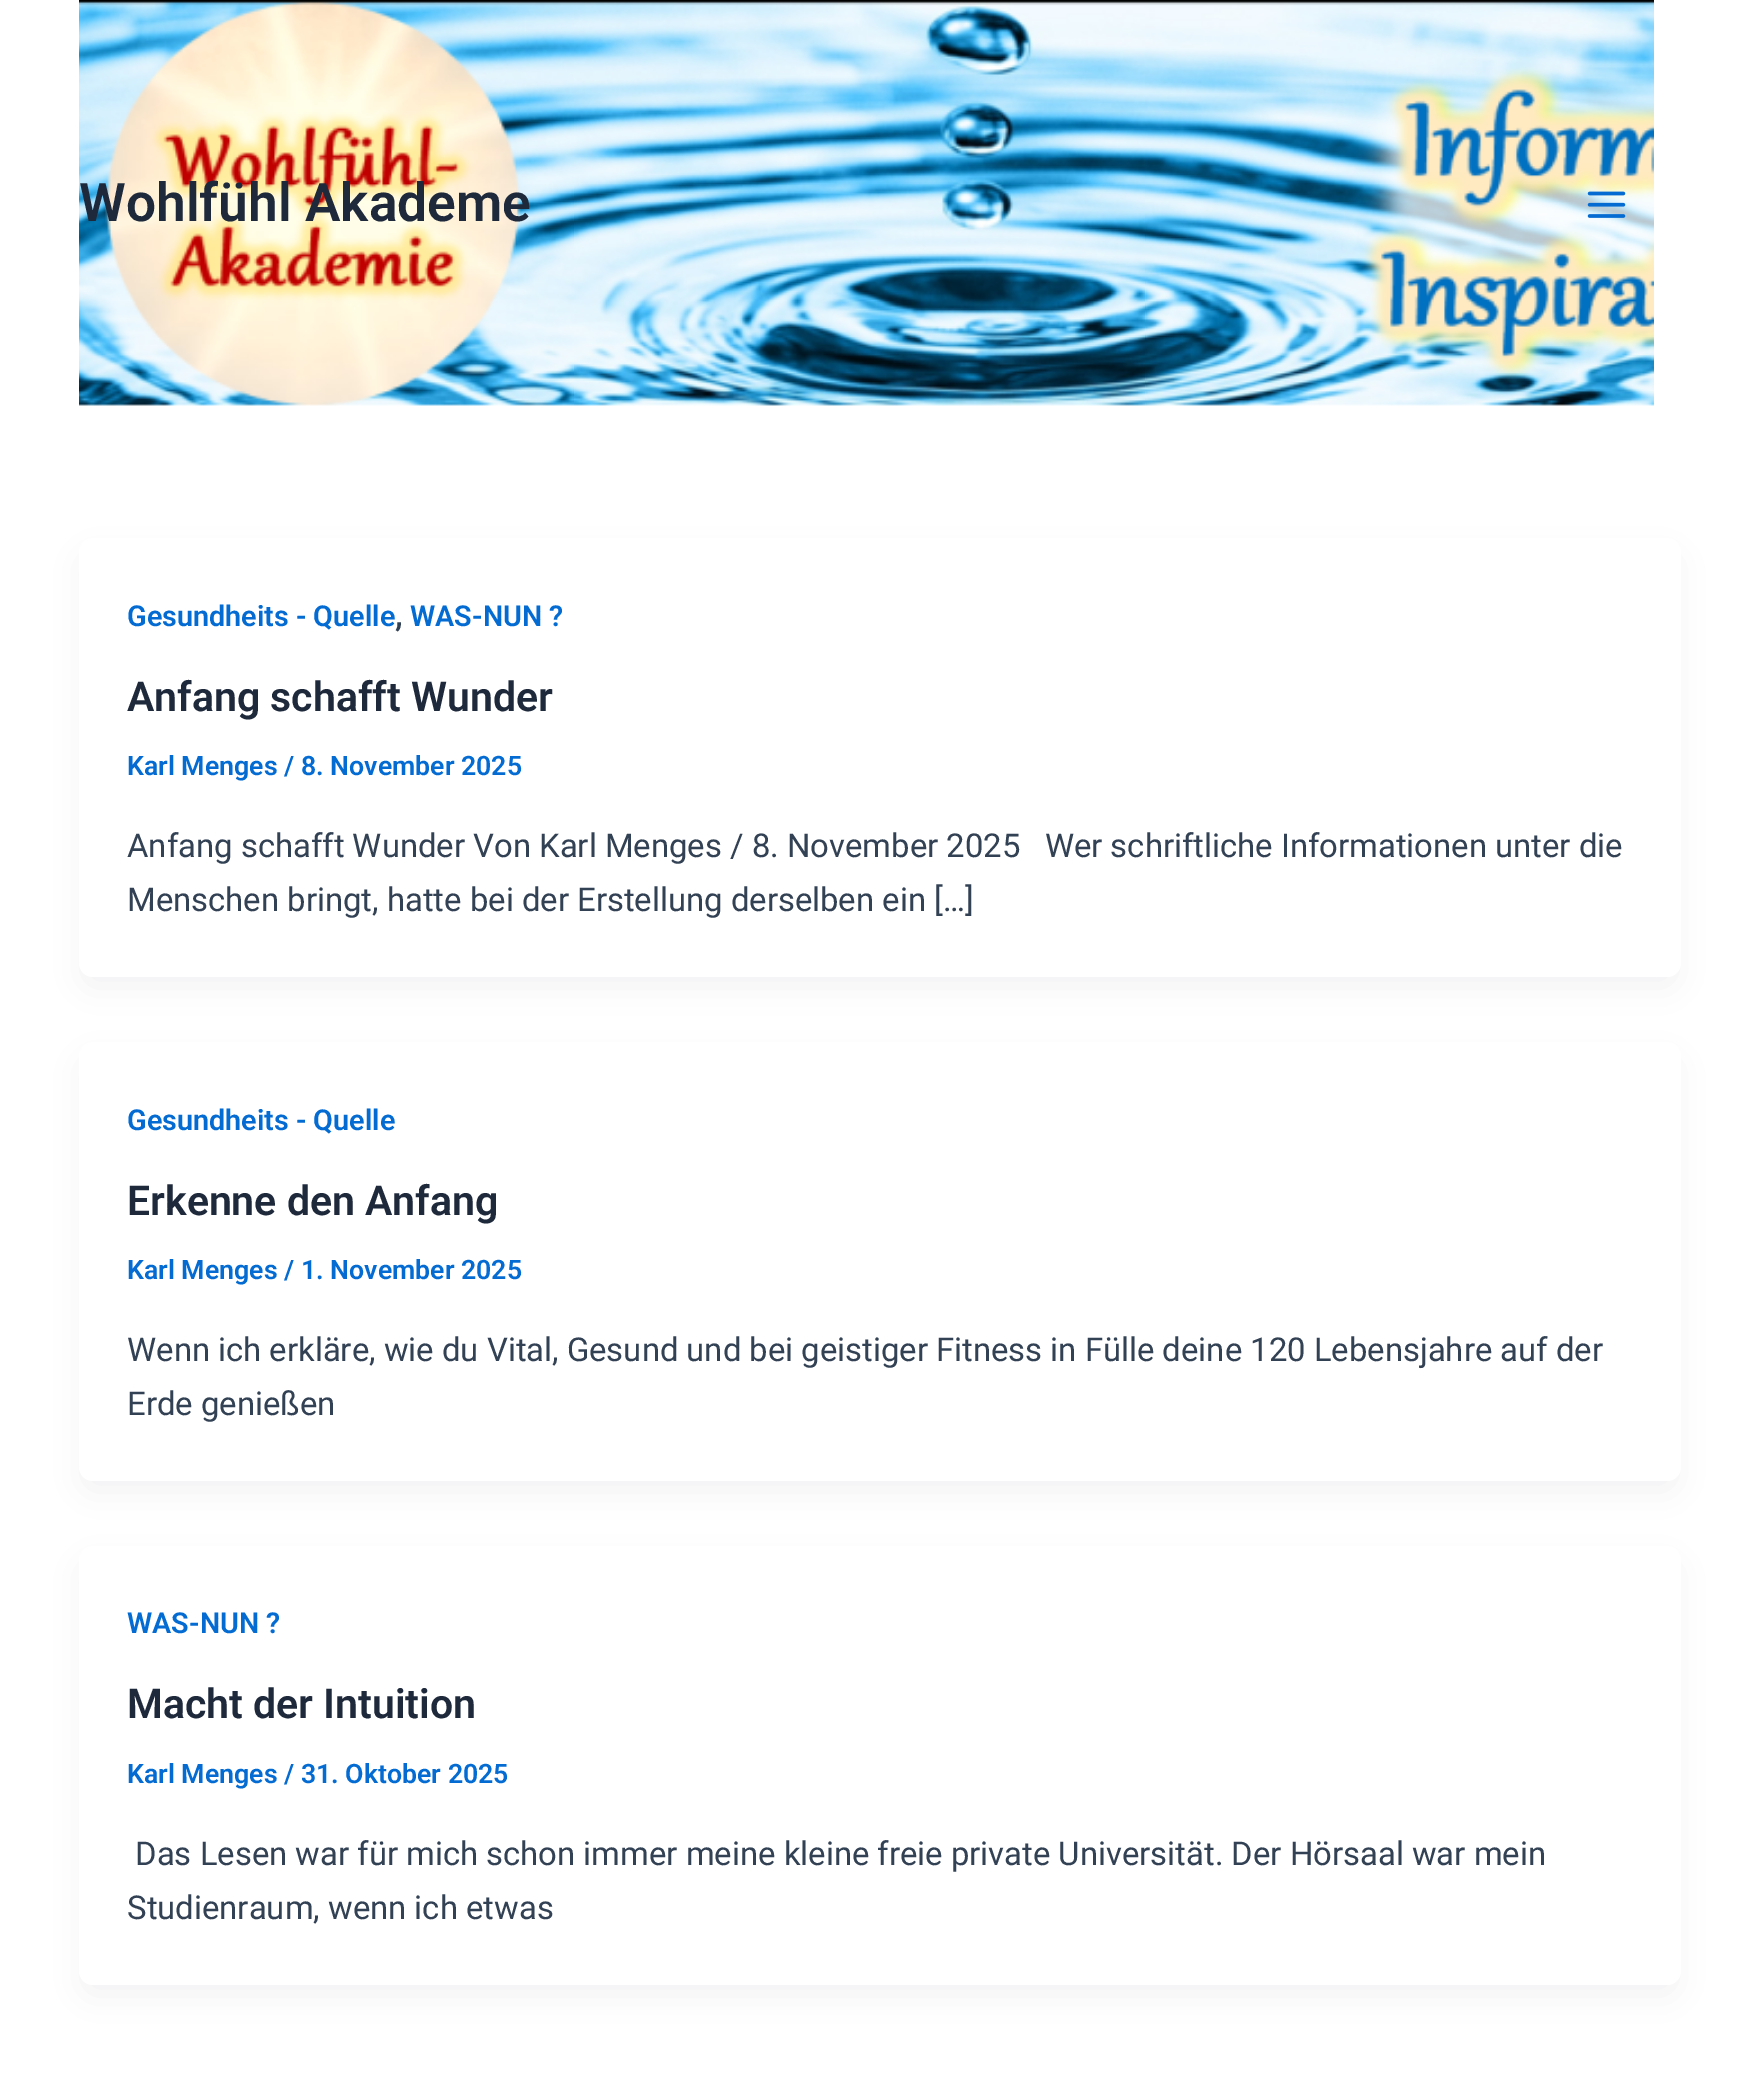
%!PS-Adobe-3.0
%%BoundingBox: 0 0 1758 2081
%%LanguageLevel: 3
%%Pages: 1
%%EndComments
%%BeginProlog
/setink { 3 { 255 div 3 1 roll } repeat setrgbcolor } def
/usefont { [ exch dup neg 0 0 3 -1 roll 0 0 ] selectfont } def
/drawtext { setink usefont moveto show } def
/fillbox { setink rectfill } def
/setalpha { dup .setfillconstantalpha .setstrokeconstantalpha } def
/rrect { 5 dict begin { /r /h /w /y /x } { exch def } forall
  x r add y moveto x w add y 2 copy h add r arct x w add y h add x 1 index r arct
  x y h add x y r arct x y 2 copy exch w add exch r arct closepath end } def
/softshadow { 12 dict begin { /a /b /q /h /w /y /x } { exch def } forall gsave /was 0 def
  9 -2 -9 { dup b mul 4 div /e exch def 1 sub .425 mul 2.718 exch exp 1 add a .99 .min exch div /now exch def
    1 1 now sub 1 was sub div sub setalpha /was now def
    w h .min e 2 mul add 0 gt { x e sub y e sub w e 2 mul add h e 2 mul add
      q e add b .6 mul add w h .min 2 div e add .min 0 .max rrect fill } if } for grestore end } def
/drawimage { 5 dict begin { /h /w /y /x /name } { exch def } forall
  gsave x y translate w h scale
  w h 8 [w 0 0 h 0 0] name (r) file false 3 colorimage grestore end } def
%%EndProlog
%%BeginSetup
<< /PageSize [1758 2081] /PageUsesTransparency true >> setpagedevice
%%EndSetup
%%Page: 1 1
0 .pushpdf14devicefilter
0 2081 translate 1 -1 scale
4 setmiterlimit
0 0 1758 2081 255 255 255 fillbox
(assets/img1.rgb) 79 0 1575 406 drawimage
(Wohlfühl Akademe) 79 221 /Roboto-SemiBold 53.25 30 41 59 drawtext
(assets/img2.rgb) 1587 191 39 27 drawimage
16 24 40 setink
83 556 1593 430 9 17 0.05 softshadow
255 255 255 setink
79 538 1602 439 14 rrect fill
(Gesundheits - Quelle) 127 626 /Roboto-SemiBold 28.75 4 107 210 drawtext
(,) 395 626 /Roboto-SemiBold 32.85 51 65 85 drawtext
(WAS-NUN ?) 410 626 /Roboto-SemiBold 28.75 4 107 210 drawtext
(Anfang schafft Wunder) 127 711 /Roboto-SemiBold 41 30 41 59 drawtext
(Karl Menges / 8. November 2025) 127 775 /Roboto-SemiBold 26.7 4 107 210 drawtext
(Anfang schafft Wunder Von Karl Menges / 8. November 2025   Wer schriftliche Informationen unter die) 127 857 /Roboto-Regular 32.85 51 65 85 drawtext
(Menschen bringt, hatte bei der Erstellung derselben ein […]) 127 911 /Roboto-Regular 32.85 51 65 85 drawtext
16 24 40 setink
83 1060 1593 430 9 17 0.05 softshadow
255 255 255 setink
79 1042 1602 439 14 rrect fill
(Gesundheits - Quelle) 127 1130 /Roboto-SemiBold 28.75 4 107 210 drawtext
(Erkenne den Anfang) 127 1215 /Roboto-SemiBold 41 30 41 59 drawtext
(Karl Menges / 1. November 2025) 127 1279 /Roboto-SemiBold 26.7 4 107 210 drawtext
(Wenn ich erkläre, wie du Vital, Gesund und bei geistiger Fitness in Fülle deine 120 Lebensjahre auf der) 127 1361 /Roboto-Regular 32.85 51 65 85 drawtext
(Erde genießen) 127 1415 /Roboto-Regular 32.85 51 65 85 drawtext
16 24 40 setink
83 1564 1593 430 9 17 0.05 softshadow
255 255 255 setink
79 1546 1602 439 14 rrect fill
(WAS-NUN ?) 127 1633 /Roboto-SemiBold 28.75 4 107 210 drawtext
(Macht der Intuition) 127 1718 /Roboto-SemiBold 41 30 41 59 drawtext
(Karl Menges / 31. Oktober 2025) 127 1783 /Roboto-SemiBold 26.7 4 107 210 drawtext
(Das Lesen war für mich schon immer meine kleine freie private Universität. Der Hörsaal war mein) 135 1865 /Roboto-Regular 32.85 51 65 85 drawtext
(Studienraum, wenn ich etwas) 127 1919 /Roboto-Regular 32.85 51 65 85 drawtext
.poppdf14devicefilter showpage
%%EOF
